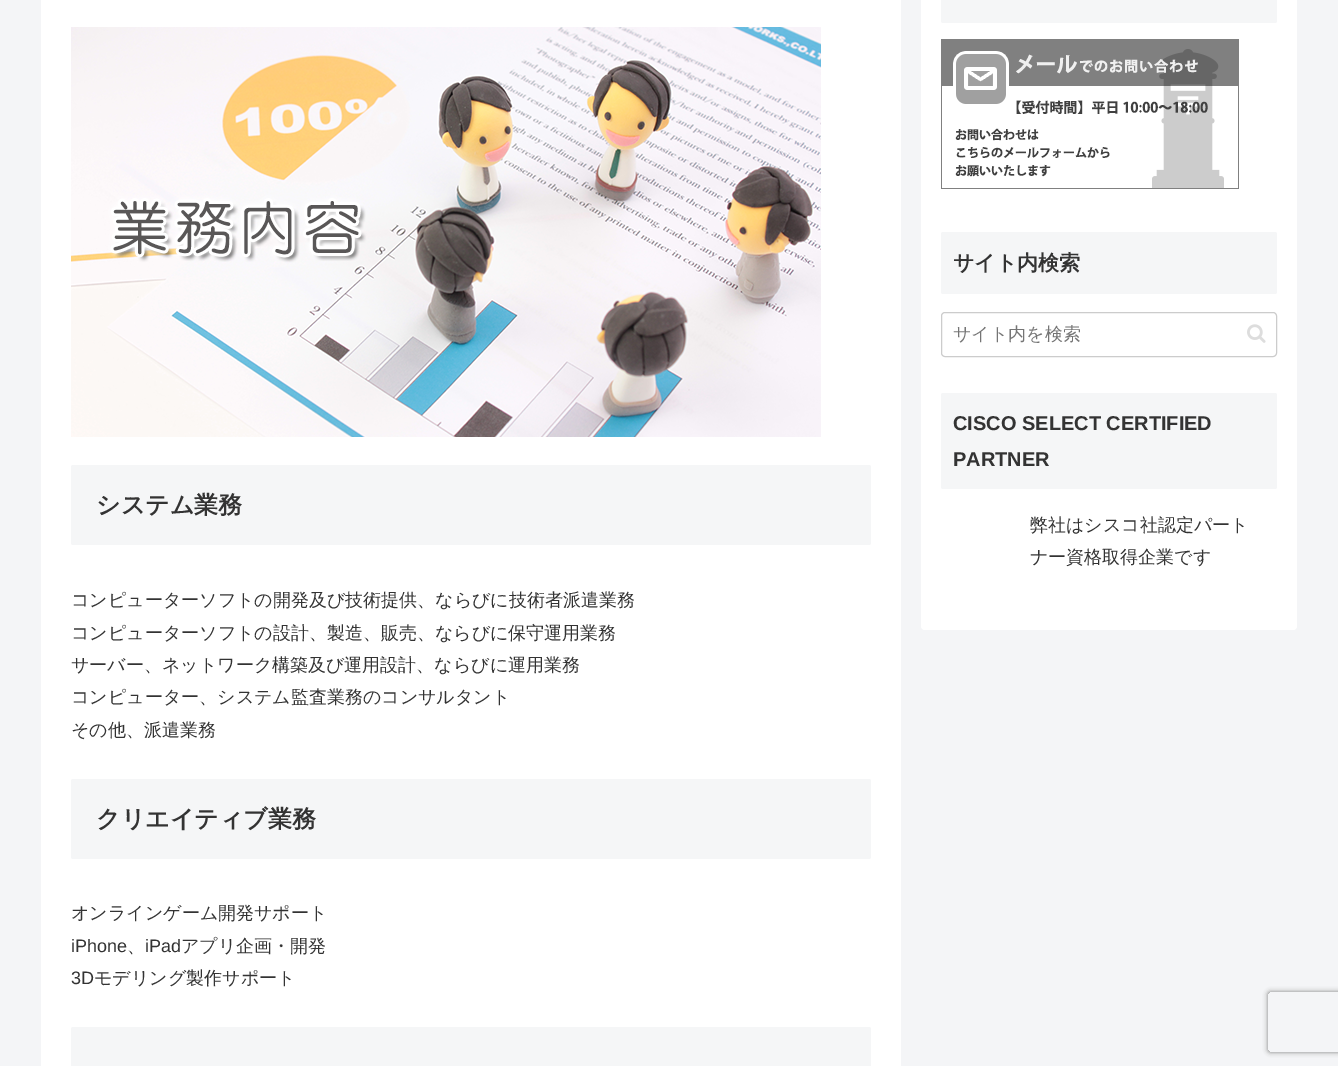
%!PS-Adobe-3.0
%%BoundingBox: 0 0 1338 1066
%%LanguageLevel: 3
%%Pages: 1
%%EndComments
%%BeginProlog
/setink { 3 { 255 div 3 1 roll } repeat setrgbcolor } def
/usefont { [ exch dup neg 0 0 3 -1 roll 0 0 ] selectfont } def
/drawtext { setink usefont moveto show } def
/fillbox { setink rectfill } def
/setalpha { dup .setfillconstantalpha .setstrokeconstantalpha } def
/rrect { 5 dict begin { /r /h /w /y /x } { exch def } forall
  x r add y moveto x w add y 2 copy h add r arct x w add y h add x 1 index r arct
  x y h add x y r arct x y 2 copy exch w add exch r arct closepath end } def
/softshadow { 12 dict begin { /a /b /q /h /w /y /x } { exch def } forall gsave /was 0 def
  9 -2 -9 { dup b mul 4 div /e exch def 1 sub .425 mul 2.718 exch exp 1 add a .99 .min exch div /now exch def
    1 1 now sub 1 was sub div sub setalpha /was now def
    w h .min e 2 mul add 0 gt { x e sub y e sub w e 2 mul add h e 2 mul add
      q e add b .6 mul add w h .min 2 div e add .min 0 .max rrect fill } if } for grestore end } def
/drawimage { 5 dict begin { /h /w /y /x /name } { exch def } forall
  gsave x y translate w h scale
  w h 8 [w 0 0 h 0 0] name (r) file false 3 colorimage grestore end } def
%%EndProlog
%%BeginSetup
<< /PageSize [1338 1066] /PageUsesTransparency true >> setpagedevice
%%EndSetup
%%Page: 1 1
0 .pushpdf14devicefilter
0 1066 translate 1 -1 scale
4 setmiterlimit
0 0 1338 1066 244 245 247 fillbox
255 255 255 setink
921 -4 376 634 4 rrect fill
245 246 247 setink
941 -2 336 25 2 rrect fill
(assets/img1.rgb) 941 39 298 150 drawimage
941 232 336 62 2 rrect fill
(サイト内検索) 953 270 /WenQuanYiZenHei-Bold 21 51 51 51 drawtext
204 204 204 setink
941.5 312.5 335 44 3.5 rrect stroke
(サイト内を検索) 953 340 /WenQuanYiZenHei-Medium 18 117 117 117 drawtext
(assets/img2.rgb) 1247 324 19 19 drawimage
245 246 247 setink
941 393 336 96 2 rrect fill
(CISCO SELECT CERTIFIED) 953 430 /LiberationSans-Bold 20 51 51 51 drawtext
(PARTNER) 953 466 /LiberationSans-Bold 20 51 51 51 drawtext
(弊社はシスコ社認定パート) 1030 531 /WenQuanYiZenHei-Medium 18 51 51 51 drawtext
(ナー資格取得企業です) 1030 563 /WenQuanYiZenHei-Medium 18 51 51 51 drawtext
41 0 860 1066 255 255 255 fillbox
(assets/img3.rgb) 71 27 750 410 drawimage
245 246 247 setink
71 465 800 80 2 rrect fill
(システム業務) 96 513 /WenQuanYiZenHei-Bold 24 51 51 51 drawtext
(コンピューターソフトの開発及び技術提供、ならびに技術者派遣業務) 71 606 /WenQuanYiZenHei-Medium 18 51 51 51 drawtext
(コンピューターソフトの設計、製造、販売、ならびに保守運用業務) 71 639 /WenQuanYiZenHei-Medium 18 51 51 51 drawtext
(サーバー、ネットワーク構築及び運用設計、ならびに運用業務) 71 671 /WenQuanYiZenHei-Medium 18 51 51 51 drawtext
(コンピューター、システム監査業務のコンサルタント) 71 703 /WenQuanYiZenHei-Medium 18 51 51 51 drawtext
(その他、派遣業務) 71 736 /WenQuanYiZenHei-Medium 18 51 51 51 drawtext
245 246 247 setink
71 779 800 80 2 rrect fill
(クリエイティブ業務) 96 827 /WenQuanYiZenHei-Bold 24 51 51 51 drawtext
(オンラインゲーム開発サポート) 71 919 /WenQuanYiZenHei-Medium 18 51 51 51 drawtext
(iPhone) 71 952 /LiberationSans-Regular 18 51 51 51 drawtext
(、) 127 952 /WenQuanYiZenHei-Medium 18 51 51 51 drawtext
(iPad) 145 952 /LiberationSans-Regular 18 51 51 51 drawtext
(アプリ企画・開発) 181 952 /WenQuanYiZenHei-Medium 18 51 51 51 drawtext
(3D) 71 984 /LiberationSans-Regular 18 51 51 51 drawtext
(モデリング製作サポート) 94 984 /WenQuanYiZenHei-Medium 18 51 51 51 drawtext
245 246 247 setink
71 1027 800 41 2 rrect fill
gsave
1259 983 moveto 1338 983 lineto 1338 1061 lineto 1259 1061 lineto closepath 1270 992 moveto 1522 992 lineto 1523 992 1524 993 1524 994 curveto 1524 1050 lineto 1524 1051 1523 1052 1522 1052 curveto 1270 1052 lineto 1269 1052 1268 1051 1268 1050 curveto 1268 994 lineto 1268 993 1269 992 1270 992 curveto closepath eoclip newpath
128 128 128 setink
1268 992 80 60 2 2.5 1 softshadow
grestore
.poppdf14devicefilter showpage
%%EOF
